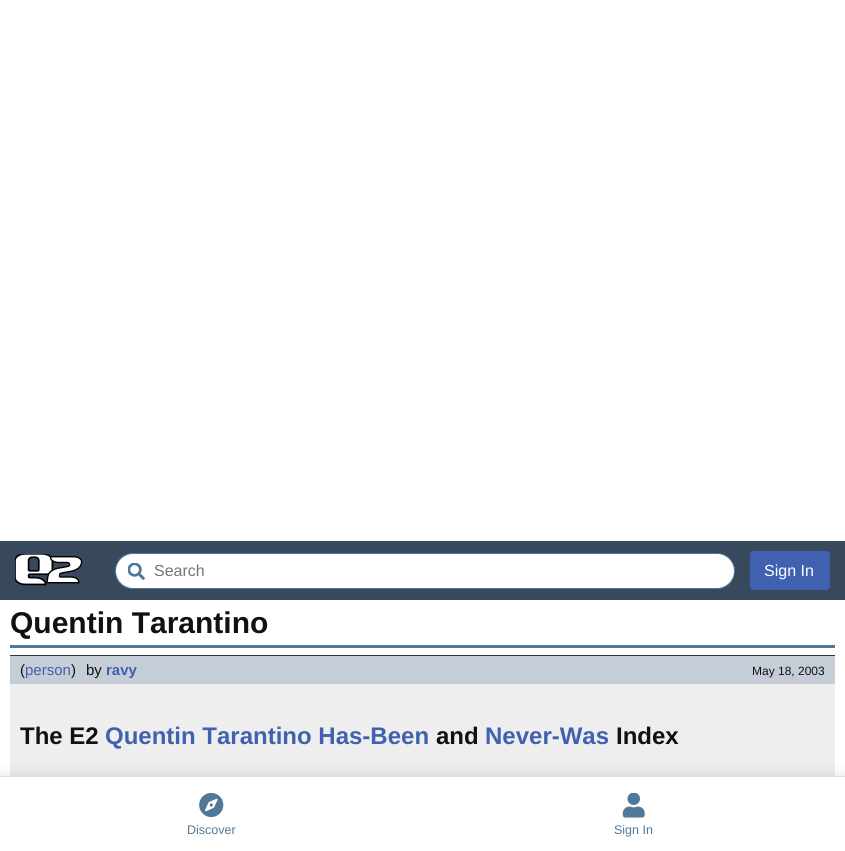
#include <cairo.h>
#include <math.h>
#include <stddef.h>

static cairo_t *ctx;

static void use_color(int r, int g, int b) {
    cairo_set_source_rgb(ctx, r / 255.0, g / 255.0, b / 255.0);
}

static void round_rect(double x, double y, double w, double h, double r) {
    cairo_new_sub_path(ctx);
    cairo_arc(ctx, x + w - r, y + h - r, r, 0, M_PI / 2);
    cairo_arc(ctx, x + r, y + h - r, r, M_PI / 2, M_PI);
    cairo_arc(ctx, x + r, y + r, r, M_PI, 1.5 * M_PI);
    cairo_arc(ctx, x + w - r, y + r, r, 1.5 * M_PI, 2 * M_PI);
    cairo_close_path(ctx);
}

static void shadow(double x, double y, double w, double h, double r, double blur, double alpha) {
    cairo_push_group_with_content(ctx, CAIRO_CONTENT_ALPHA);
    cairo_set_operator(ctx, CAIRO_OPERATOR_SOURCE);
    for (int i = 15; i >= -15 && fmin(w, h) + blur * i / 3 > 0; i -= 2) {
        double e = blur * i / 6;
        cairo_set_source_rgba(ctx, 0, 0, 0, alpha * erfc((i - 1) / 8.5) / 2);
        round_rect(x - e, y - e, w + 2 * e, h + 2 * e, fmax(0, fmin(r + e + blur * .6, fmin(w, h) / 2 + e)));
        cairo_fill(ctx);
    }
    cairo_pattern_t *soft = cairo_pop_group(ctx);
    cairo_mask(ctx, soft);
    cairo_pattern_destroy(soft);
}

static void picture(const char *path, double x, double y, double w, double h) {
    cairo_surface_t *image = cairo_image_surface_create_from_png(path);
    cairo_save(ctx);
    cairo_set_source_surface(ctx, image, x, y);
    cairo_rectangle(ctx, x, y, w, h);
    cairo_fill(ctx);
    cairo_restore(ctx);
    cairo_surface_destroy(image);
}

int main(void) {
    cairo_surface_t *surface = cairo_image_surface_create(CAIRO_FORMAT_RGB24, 845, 851);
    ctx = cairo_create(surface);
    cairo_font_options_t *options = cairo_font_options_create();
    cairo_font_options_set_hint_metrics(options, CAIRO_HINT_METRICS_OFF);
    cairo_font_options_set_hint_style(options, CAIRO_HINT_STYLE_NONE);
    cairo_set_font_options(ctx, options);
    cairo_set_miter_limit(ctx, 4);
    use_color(255, 255, 255);
    cairo_paint(ctx);
    use_color(56, 73, 94);
    cairo_rectangle(ctx, 0, 541, 845, 59);
    cairo_fill(ctx);
    picture("img1.png", 15, 554, 68, 32);
    use_color(255, 255, 255);
    round_rect(115.5, 553.5, 619, 35, 17.5);
    cairo_fill_preserve(ctx);
    use_color(80, 120, 152);
    cairo_set_line_width(ctx, 1);
    cairo_stroke(ctx);
    picture("img2.png", 128, 563, 17, 17);
    cairo_select_font_face(ctx, "Liberation Sans", CAIRO_FONT_SLANT_NORMAL, CAIRO_FONT_WEIGHT_NORMAL);
    cairo_set_font_size(ctx, 16);
    use_color(117, 117, 117);
    cairo_move_to(ctx, 154, 576);
    cairo_show_text(ctx, "Search");
    use_color(64, 96, 176);
    round_rect(750, 551, 80, 39, 4);
    cairo_fill(ctx);
    use_color(255, 255, 255);
    cairo_move_to(ctx, 764, 576);
    cairo_show_text(ctx, "Sign In");
    use_color(80, 120, 152);
    cairo_rectangle(ctx, 10, 645, 825, 3);
    cairo_fill(ctx);
    cairo_select_font_face(ctx, "Liberation Sans", CAIRO_FONT_SLANT_NORMAL, CAIRO_FONT_WEIGHT_BOLD);
    cairo_set_font_size(ctx, 30);
    use_color(17, 17, 17);
    cairo_move_to(ctx, 10, 633);
    cairo_show_text(ctx, "Quentin Tarantino");
    use_color(197, 205, 215);
    cairo_rectangle(ctx, 10, 656, 825, 28);
    cairo_fill(ctx);
    use_color(51, 51, 51);
    cairo_rectangle(ctx, 10, 655, 825, 1);
    cairo_fill(ctx);
    cairo_select_font_face(ctx, "Liberation Sans", CAIRO_FONT_SLANT_NORMAL, CAIRO_FONT_WEIGHT_NORMAL);
    cairo_set_font_size(ctx, 15);
    use_color(17, 17, 17);
    cairo_move_to(ctx, 20, 675);
    cairo_show_text(ctx, "(");
    use_color(64, 96, 176);
    cairo_move_to(ctx, 25, 675);
    cairo_show_text(ctx, "person");
    use_color(17, 17, 17);
    cairo_move_to(ctx, 71, 675);
    cairo_show_text(ctx, ")");
    cairo_move_to(ctx, 86, 675);
    cairo_show_text(ctx, "by");
    cairo_select_font_face(ctx, "Liberation Sans", CAIRO_FONT_SLANT_NORMAL, CAIRO_FONT_WEIGHT_BOLD);
    use_color(64, 96, 176);
    cairo_move_to(ctx, 106, 675);
    cairo_show_text(ctx, "ravy");
    cairo_select_font_face(ctx, "Liberation Sans", CAIRO_FONT_SLANT_NORMAL, CAIRO_FONT_WEIGHT_NORMAL);
    cairo_set_font_size(ctx, 12);
    use_color(17, 17, 17);
    cairo_move_to(ctx, 752, 675);
    cairo_show_text(ctx, "May 18, 2003");
    use_color(238, 238, 238);
    cairo_rectangle(ctx, 10, 684, 825, 92);
    cairo_fill(ctx);
    cairo_select_font_face(ctx, "Liberation Sans", CAIRO_FONT_SLANT_NORMAL, CAIRO_FONT_WEIGHT_BOLD);
    cairo_set_font_size(ctx, 24);
    use_color(17, 17, 17);
    cairo_move_to(ctx, 20, 744);
    cairo_show_text(ctx, "The E2");
    use_color(64, 96, 176);
    cairo_move_to(ctx, 105, 744);
    cairo_show_text(ctx, "Quentin Tarantino Has-Been");
    use_color(17, 17, 17);
    cairo_move_to(ctx, 436, 744);
    cairo_show_text(ctx, "and");
    use_color(64, 96, 176);
    cairo_move_to(ctx, 485, 744);
    cairo_show_text(ctx, "Never-Was");
    use_color(17, 17, 17);
    cairo_move_to(ctx, 616, 744);
    cairo_show_text(ctx, "Index");
    use_color(0, 0, 0);
    shadow(0, 774, 845, 75, 0, 6, 0.1);
    use_color(255, 255, 255);
    cairo_rectangle(ctx, 0, 777, 845, 74);
    cairo_fill(ctx);
    use_color(224, 224, 224);
    cairo_rectangle(ctx, 0, 776, 845, 1);
    cairo_fill(ctx);
    picture("img3.png", 199, 793, 25, 25);
    cairo_select_font_face(ctx, "Liberation Sans", CAIRO_FONT_SLANT_NORMAL, CAIRO_FONT_WEIGHT_NORMAL);
    cairo_set_font_size(ctx, 12.5);
    use_color(80, 120, 152);
    cairo_move_to(ctx, 187, 834);
    cairo_show_text(ctx, "Discover");
    picture("img4.png", 622, 793, 23, 25);
    cairo_move_to(ctx, 614, 834);
    cairo_show_text(ctx, "Sign In");
    cairo_surface_write_to_png(surface, "result.png");
    cairo_font_options_destroy(options);
    cairo_destroy(ctx);
    cairo_surface_destroy(surface);
    return 0;
}
